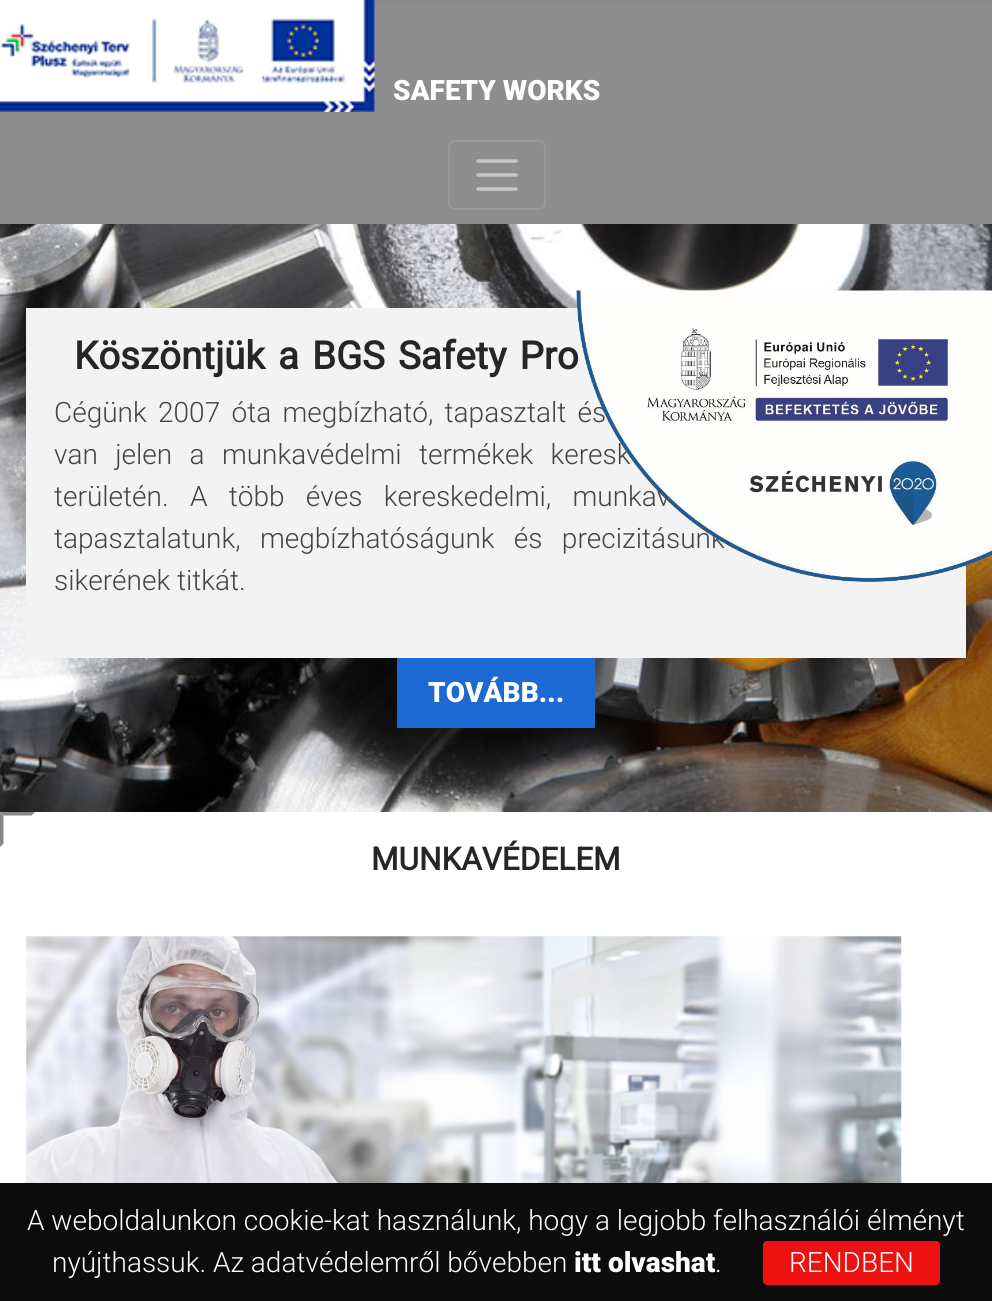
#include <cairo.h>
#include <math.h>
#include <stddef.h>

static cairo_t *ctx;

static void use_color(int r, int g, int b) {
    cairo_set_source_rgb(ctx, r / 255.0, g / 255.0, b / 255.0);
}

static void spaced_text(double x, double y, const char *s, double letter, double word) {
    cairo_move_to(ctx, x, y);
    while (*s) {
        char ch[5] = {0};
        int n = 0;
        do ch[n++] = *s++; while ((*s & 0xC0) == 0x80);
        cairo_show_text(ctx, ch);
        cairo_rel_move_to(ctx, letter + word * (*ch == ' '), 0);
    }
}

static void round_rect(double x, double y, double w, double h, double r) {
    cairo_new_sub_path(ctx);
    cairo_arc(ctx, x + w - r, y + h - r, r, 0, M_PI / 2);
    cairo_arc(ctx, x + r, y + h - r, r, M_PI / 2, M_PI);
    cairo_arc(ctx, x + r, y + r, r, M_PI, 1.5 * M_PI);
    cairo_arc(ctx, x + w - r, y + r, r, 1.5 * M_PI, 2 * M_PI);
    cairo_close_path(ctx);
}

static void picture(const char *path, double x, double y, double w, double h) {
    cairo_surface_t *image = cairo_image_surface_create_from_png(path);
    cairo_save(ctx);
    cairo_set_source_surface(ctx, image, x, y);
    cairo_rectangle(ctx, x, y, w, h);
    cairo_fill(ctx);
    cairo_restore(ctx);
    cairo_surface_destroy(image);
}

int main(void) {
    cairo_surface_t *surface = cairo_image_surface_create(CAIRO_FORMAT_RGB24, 992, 1301);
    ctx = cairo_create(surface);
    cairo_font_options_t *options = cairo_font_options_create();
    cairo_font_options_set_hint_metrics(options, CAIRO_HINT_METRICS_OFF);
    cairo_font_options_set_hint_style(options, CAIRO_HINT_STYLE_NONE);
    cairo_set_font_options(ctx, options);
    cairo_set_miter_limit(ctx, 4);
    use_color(255, 255, 255);
    cairo_paint(ctx);
    use_color(138, 138, 138);
    cairo_rectangle(ctx, 374, 0, 618, 7);
    cairo_fill(ctx);
    use_color(142, 142, 142);
    cairo_rectangle(ctx, 0, 7, 992, 217);
    cairo_fill(ctx);
    cairo_select_font_face(ctx, "Roboto Black", CAIRO_FONT_SLANT_NORMAL, CAIRO_FONT_WEIGHT_NORMAL);
    cairo_set_font_size(ctx, 28);
    use_color(255, 255, 255);
    cairo_move_to(ctx, 393, 100);
    cairo_show_text(ctx, "SAFETY WORKS");
    round_rect(449, 141, 96, 68, 6);
    use_color(153, 153, 153);
    cairo_stroke(ctx);
    cairo_new_path(ctx);
    cairo_move_to(ctx, 478, 161);
    cairo_line_to(ctx, 516, 161);
    cairo_move_to(ctx, 478, 175);
    cairo_line_to(ctx, 516, 175);
    cairo_move_to(ctx, 478, 189);
    cairo_line_to(ctx, 516, 189);
    use_color(199, 199, 199);
    cairo_set_line_width(ctx, 3.5);
    cairo_set_line_cap(ctx, CAIRO_LINE_CAP_ROUND);
    cairo_stroke(ctx);
    picture("img1.png", 0, 224, 992, 588);
    use_color(243, 243, 243);
    cairo_rectangle(ctx, 26, 308, 940, 350);
    cairo_fill(ctx);
    cairo_select_font_face(ctx, "Roboto", CAIRO_FONT_SLANT_NORMAL, CAIRO_FONT_WEIGHT_BOLD);
    cairo_set_font_size(ctx, 38.5);
    use_color(38, 38, 38);
    spaced_text(74, 369, "Köszöntjük a BGS Safety Pro", 0, 3.5);
    cairo_select_font_face(ctx, "Roboto Light", CAIRO_FONT_SLANT_NORMAL, CAIRO_FONT_WEIGHT_NORMAL);
    cairo_set_font_size(ctx, 28);
    use_color(68, 68, 68);
    spaced_text(54, 422, "Cégünk 2007 óta megbízható, tapasztalt és", 0, 4.5);
    spaced_text(54, 464, "van jelen a munkavédelmi termékek keresk", 0, 10.5);
    spaced_text(54, 506, "területén. A több éves kereskedelmi, munkav", 0, 14.5);
    spaced_text(54, 548, "tapasztalatunk, megbízhatóságunk és precizitásunk", 0, 12.5);
    cairo_move_to(ctx, 54, 590);
    cairo_show_text(ctx, "sikerének titkát.");
    use_color(28, 105, 212);
    cairo_rectangle(ctx, 397, 658, 198, 70);
    cairo_fill(ctx);
    cairo_select_font_face(ctx, "Roboto Black", CAIRO_FONT_SLANT_NORMAL, CAIRO_FONT_WEIGHT_NORMAL);
    use_color(255, 255, 255);
    cairo_move_to(ctx, 428, 702);
    cairo_show_text(ctx, "TOVÁBB...");
    picture("img2.png", 0, 0, 375, 112);
    picture("img3.png", 576, 290, 416, 292);
    use_color(136, 136, 136);
    cairo_new_path(ctx);
    cairo_move_to(ctx, 0, 812);
    cairo_line_to(ctx, 35, 812);
    cairo_line_to(ctx, 31.5, 815.5);
    cairo_line_to(ctx, 3.5, 815.5);
    cairo_close_path(ctx);
    cairo_fill(ctx);
    cairo_new_path(ctx);
    cairo_move_to(ctx, 0, 847);
    cairo_line_to(ctx, 0, 812);
    cairo_line_to(ctx, 3.5, 815.5);
    cairo_line_to(ctx, 3.5, 843.5);
    cairo_close_path(ctx);
    cairo_fill(ctx);
    cairo_select_font_face(ctx, "Roboto", CAIRO_FONT_SLANT_NORMAL, CAIRO_FONT_WEIGHT_BOLD);
    cairo_set_font_size(ctx, 31.5);
    use_color(38, 38, 38);
    cairo_move_to(ctx, 371, 870);
    cairo_show_text(ctx, "MUNKAVÉDELEM");
    picture("img4.png", 26, 936, 876, 247);
    use_color(12, 12, 12);
    cairo_rectangle(ctx, 0, 1183, 992, 118);
    cairo_fill(ctx);
    cairo_select_font_face(ctx, "Roboto Light", CAIRO_FONT_SLANT_NORMAL, CAIRO_FONT_WEIGHT_NORMAL);
    cairo_set_font_size(ctx, 28);
    use_color(255, 255, 255);
    cairo_move_to(ctx, 27, 1230);
    cairo_show_text(ctx, "A weboldalunkon cookie-kat használunk, hogy a legjobb felhasználói élményt");
    cairo_move_to(ctx, 52, 1272);
    cairo_show_text(ctx, "nyújthassuk. Az adatvédelemről bővebben");
    cairo_select_font_face(ctx, "Roboto Black", CAIRO_FONT_SLANT_NORMAL, CAIRO_FONT_WEIGHT_NORMAL);
    cairo_move_to(ctx, 574, 1272);
    cairo_show_text(ctx, "itt olvashat");
    cairo_select_font_face(ctx, "Roboto Light", CAIRO_FONT_SLANT_NORMAL, CAIRO_FONT_WEIGHT_NORMAL);
    cairo_move_to(ctx, 715, 1272);
    cairo_show_text(ctx, ".");
    use_color(238, 17, 17);
    round_rect(763, 1241, 177, 44, 4);
    cairo_fill(ctx);
    use_color(255, 255, 255);
    cairo_move_to(ctx, 789, 1272);
    cairo_show_text(ctx, "RENDBEN");
    cairo_surface_write_to_png(surface, "result.png");
    cairo_font_options_destroy(options);
    cairo_destroy(ctx);
    cairo_surface_destroy(surface);
    return 0;
}
